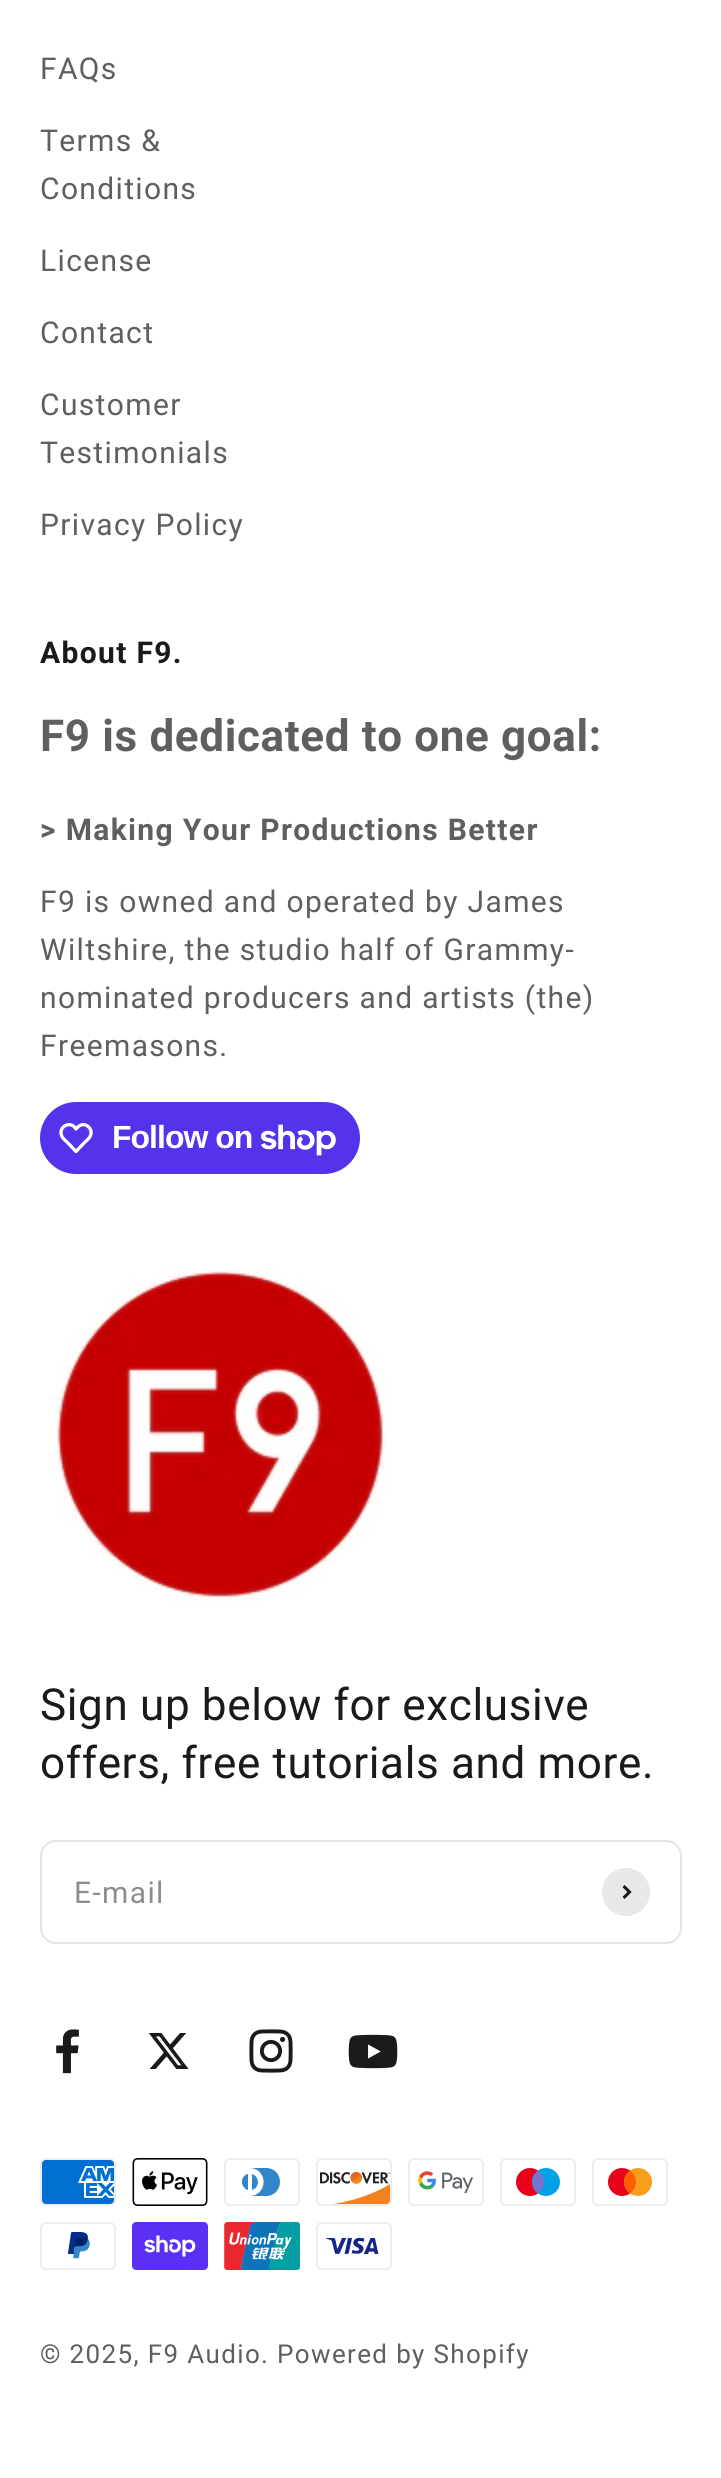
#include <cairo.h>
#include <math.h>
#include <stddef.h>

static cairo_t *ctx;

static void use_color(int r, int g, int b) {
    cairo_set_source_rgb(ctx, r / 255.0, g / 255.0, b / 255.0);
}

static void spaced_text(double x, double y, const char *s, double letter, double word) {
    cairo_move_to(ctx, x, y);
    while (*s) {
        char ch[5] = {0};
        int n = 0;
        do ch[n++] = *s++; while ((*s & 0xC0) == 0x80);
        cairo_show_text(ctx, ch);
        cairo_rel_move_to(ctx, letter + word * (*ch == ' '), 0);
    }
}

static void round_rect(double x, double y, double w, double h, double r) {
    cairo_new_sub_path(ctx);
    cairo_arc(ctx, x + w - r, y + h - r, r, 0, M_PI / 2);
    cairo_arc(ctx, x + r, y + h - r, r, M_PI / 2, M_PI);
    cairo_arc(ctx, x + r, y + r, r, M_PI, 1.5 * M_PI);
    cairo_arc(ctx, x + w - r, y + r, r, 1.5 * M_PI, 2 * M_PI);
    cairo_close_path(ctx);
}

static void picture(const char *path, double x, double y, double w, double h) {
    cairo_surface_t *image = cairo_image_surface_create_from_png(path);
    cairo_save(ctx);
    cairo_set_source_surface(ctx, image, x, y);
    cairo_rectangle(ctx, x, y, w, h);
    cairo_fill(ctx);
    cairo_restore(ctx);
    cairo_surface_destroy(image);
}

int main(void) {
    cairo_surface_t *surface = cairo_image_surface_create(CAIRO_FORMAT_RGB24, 721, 2478);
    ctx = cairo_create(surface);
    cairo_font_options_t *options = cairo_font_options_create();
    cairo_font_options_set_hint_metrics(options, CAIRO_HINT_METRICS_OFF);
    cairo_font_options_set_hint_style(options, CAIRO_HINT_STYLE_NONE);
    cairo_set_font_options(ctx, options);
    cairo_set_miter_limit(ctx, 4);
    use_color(255, 255, 255);
    cairo_paint(ctx);
    cairo_select_font_face(ctx, "Roboto", CAIRO_FONT_SLANT_NORMAL, CAIRO_FONT_WEIGHT_NORMAL);
    cairo_set_font_size(ctx, 30);
    use_color(95, 95, 95);
    spaced_text(40, 79, "FAQs", 1.35, 0);
    spaced_text(40, 151, "Terms &", 1.35, 0);
    spaced_text(40, 199, "Conditions", 1.35, 0);
    spaced_text(40, 271, "License", 1.35, 0);
    spaced_text(40, 343, "Contact", 1.35, 0);
    spaced_text(40, 415, "Customer", 1.35, 0);
    spaced_text(40, 463, "Testimonials", 1.35, 0);
    spaced_text(40, 535, "Privacy Policy", 1.35, 0);
    cairo_select_font_face(ctx, "Roboto", CAIRO_FONT_SLANT_NORMAL, CAIRO_FONT_WEIGHT_BOLD);
    use_color(26, 26, 26);
    spaced_text(40, 663, "About F9.", 1.35, 0);
    cairo_set_font_size(ctx, 44);
    use_color(95, 95, 95);
    spaced_text(40, 751, "F9 is dedicated to one goal:", 0.65, 0);
    cairo_set_font_size(ctx, 30);
    spaced_text(40, 840, "> Making Your Productions Better", 1.35, 0);
    cairo_select_font_face(ctx, "Roboto", CAIRO_FONT_SLANT_NORMAL, CAIRO_FONT_WEIGHT_NORMAL);
    spaced_text(40, 912, "F9 is owned and operated by James", 1.35, 0);
    spaced_text(40, 960, "Wiltshire, the studio half of Grammy-", 1.35, 0);
    spaced_text(40, 1008, "nominated producers and artists (the)", 1.35, 0);
    spaced_text(40, 1056, "Freemasons.", 1.35, 0);
    use_color(84, 51, 235);
    round_rect(40, 1102, 320, 72, 36);
    cairo_fill(ctx);
    cairo_new_path(ctx);
    cairo_move_to(ctx, 74.5, 1127);
    cairo_line_to(ctx, 76, 1129);
    cairo_curve_to(ctx, 77.5, 1127.5, 79, 1125.5, 81, 1125);
    cairo_curve_to(ctx, 87, 1123, 93, 1129.5, 90.5, 1135.5);
    cairo_curve_to(ctx, 89.5, 1138.5, 86.5, 1140.5, 84.5, 1142.5);
    cairo_line_to(ctx, 76, 1151.5);
    cairo_line_to(ctx, 67.5, 1142.5);
    cairo_curve_to(ctx, 65.5, 1140.5, 62.5, 1138.5, 61.5, 1135.5);
    cairo_curve_to(ctx, 58.5, 1127.5, 68.5, 1121, 74.5, 1127);
    cairo_close_path(ctx);
    use_color(255, 255, 255);
    cairo_set_line_width(ctx, 3.3);
    cairo_set_line_join(ctx, CAIRO_LINE_JOIN_ROUND);
    cairo_stroke(ctx);
    cairo_select_font_face(ctx, "Liberation Sans", CAIRO_FONT_SLANT_NORMAL, CAIRO_FONT_WEIGHT_BOLD);
    cairo_set_font_size(ctx, 32);
    spaced_text(112, 1148, "Follow on", -1, 0);
    picture("img1.png", 261, 1124, 75, 32);
    picture("img2.png", 55, 1269, 337, 337);
    cairo_select_font_face(ctx, "Roboto", CAIRO_FONT_SLANT_NORMAL, CAIRO_FONT_WEIGHT_NORMAL);
    cairo_set_font_size(ctx, 44);
    use_color(26, 26, 26);
    spaced_text(40, 1720, "Sign up below for exclusive", 0.65, 0);
    spaced_text(40, 1778, "offers, free tutorials and more.", 0.65, 0);
    round_rect(41, 1841, 640, 102, 15);
    use_color(228, 228, 228);
    cairo_set_line_width(ctx, 2);
    cairo_set_line_join(ctx, CAIRO_LINE_JOIN_MITER);
    cairo_stroke(ctx);
    cairo_set_font_size(ctx, 30);
    use_color(141, 141, 141);
    spaced_text(74, 1903, "E-mail", 1.35, 0);
    use_color(232, 232, 232);
    cairo_new_path(ctx);
    cairo_arc(ctx, 626, 1892, 24, 0, 2 * M_PI);
    cairo_fill(ctx);
    cairo_new_path(ctx);
    cairo_move_to(ctx, 623.5, 1898);
    cairo_line_to(ctx, 629.5, 1892);
    cairo_line_to(ctx, 623.5, 1886);
    use_color(26, 26, 26);
    cairo_set_line_width(ctx, 3);
    cairo_stroke(ctx);
    picture("img3.png", 56, 2029, 23, 45);
    picture("img4.png", 148, 2033, 41, 36);
    picture("img5.png", 249, 2029, 44, 44);
    picture("img6.png", 348, 2034, 50, 35);
    picture("img7.png", 40, 2158, 76, 48);
    picture("img8.png", 132, 2158, 76, 48);
    picture("img9.png", 224, 2158, 76, 48);
    picture("img10.png", 316, 2158, 76, 48);
    picture("img11.png", 408, 2158, 76, 48);
    picture("img12.png", 500, 2158, 76, 48);
    picture("img13.png", 592, 2158, 76, 48);
    picture("img14.png", 40, 2222, 76, 48);
    picture("img15.png", 132, 2222, 76, 48);
    picture("img16.png", 224, 2222, 76, 48);
    picture("img17.png", 316, 2222, 76, 48);
    cairo_set_font_size(ctx, 26);
    use_color(95, 95, 95);
    spaced_text(40, 2363, "© 2025, F9 Audio. Powered by Shopify", 1.35, 0);
    cairo_surface_write_to_png(surface, "result.png");
    cairo_font_options_destroy(options);
    cairo_destroy(ctx);
    cairo_surface_destroy(surface);
    return 0;
}
